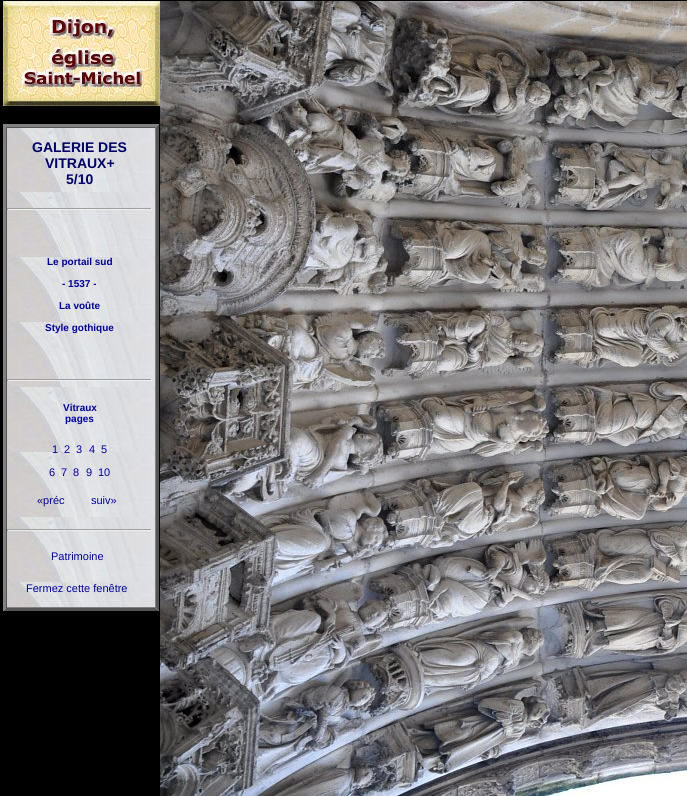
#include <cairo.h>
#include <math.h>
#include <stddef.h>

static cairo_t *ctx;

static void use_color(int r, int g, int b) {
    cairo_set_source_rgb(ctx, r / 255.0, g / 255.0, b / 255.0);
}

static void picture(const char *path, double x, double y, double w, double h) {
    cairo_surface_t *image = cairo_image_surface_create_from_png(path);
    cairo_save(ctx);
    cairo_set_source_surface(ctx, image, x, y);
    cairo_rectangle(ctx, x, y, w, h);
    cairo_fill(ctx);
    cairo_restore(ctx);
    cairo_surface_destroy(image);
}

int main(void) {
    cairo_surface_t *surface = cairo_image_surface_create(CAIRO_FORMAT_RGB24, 687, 796);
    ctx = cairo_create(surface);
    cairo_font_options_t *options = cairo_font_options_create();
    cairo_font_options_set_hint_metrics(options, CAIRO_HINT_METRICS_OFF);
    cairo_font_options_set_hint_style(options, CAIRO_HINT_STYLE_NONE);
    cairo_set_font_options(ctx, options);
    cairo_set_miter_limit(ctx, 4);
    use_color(0, 0, 0);
    cairo_paint(ctx);
    picture("img1.png", 3, 1, 157, 105);
    picture("img2.png", 160, 1, 527, 795);
    picture("img3.png", 3, 124, 156, 487);
    use_color(128, 128, 128);
    cairo_new_path(ctx);
    cairo_move_to(ctx, 3, 124);
    cairo_line_to(ctx, 159, 124);
    cairo_line_to(ctx, 156, 127);
    cairo_line_to(ctx, 6, 127);
    cairo_close_path(ctx);
    cairo_fill(ctx);
    use_color(85, 85, 85);
    cairo_new_path(ctx);
    cairo_move_to(ctx, 159, 124);
    cairo_line_to(ctx, 159, 611);
    cairo_line_to(ctx, 156, 608);
    cairo_line_to(ctx, 156, 127);
    cairo_close_path(ctx);
    cairo_fill(ctx);
    cairo_new_path(ctx);
    cairo_move_to(ctx, 159, 611);
    cairo_line_to(ctx, 3, 611);
    cairo_line_to(ctx, 6, 608);
    cairo_line_to(ctx, 156, 608);
    cairo_close_path(ctx);
    cairo_fill(ctx);
    use_color(128, 128, 128);
    cairo_new_path(ctx);
    cairo_move_to(ctx, 3, 611);
    cairo_line_to(ctx, 3, 124);
    cairo_line_to(ctx, 6, 127);
    cairo_line_to(ctx, 6, 608);
    cairo_close_path(ctx);
    cairo_fill(ctx);
    use_color(85, 85, 85);
    cairo_rectangle(ctx, 6, 127, 150, 1);
    cairo_fill(ctx);
    use_color(128, 128, 128);
    cairo_rectangle(ctx, 155, 127, 1, 481);
    cairo_fill(ctx);
    cairo_rectangle(ctx, 6, 607, 150, 1);
    cairo_fill(ctx);
    use_color(85, 85, 85);
    cairo_rectangle(ctx, 6, 127, 1, 481);
    cairo_fill(ctx);
    cairo_select_font_face(ctx, "Liberation Sans", CAIRO_FONT_SLANT_NORMAL, CAIRO_FONT_WEIGHT_BOLD);
    cairo_set_font_size(ctx, 14);
    use_color(0, 0, 102);
    cairo_move_to(ctx, 32, 152);
    cairo_show_text(ctx, "GALERIE DES");
    cairo_move_to(ctx, 45, 168);
    cairo_show_text(ctx, "VITRAUX+");
    cairo_move_to(ctx, 66, 184);
    cairo_show_text(ctx, "5/10");
    use_color(159, 159, 159);
    cairo_rectangle(ctx, 7, 208, 145, 1);
    cairo_fill(ctx);
    use_color(238, 238, 238);
    cairo_rectangle(ctx, 151, 208, 1, 2);
    cairo_fill(ctx);
    cairo_rectangle(ctx, 7, 209, 145, 1);
    cairo_fill(ctx);
    use_color(159, 159, 159);
    cairo_rectangle(ctx, 7, 208, 1, 2);
    cairo_fill(ctx);
    cairo_set_font_size(ctx, 10);
    use_color(0, 0, 153);
    cairo_move_to(ctx, 47, 265);
    cairo_show_text(ctx, "Le portail sud");
    cairo_move_to(ctx, 62, 287);
    cairo_show_text(ctx, "- 1537 -");
    cairo_move_to(ctx, 59, 309);
    cairo_show_text(ctx, "La voûte");
    cairo_move_to(ctx, 45, 331);
    cairo_show_text(ctx, "Style gothique");
    use_color(159, 159, 159);
    cairo_rectangle(ctx, 7, 379, 145, 1);
    cairo_fill(ctx);
    use_color(238, 238, 238);
    cairo_rectangle(ctx, 151, 379, 1, 2);
    cairo_fill(ctx);
    cairo_rectangle(ctx, 7, 380, 145, 1);
    cairo_fill(ctx);
    use_color(159, 159, 159);
    cairo_rectangle(ctx, 7, 379, 1, 2);
    cairo_fill(ctx);
    use_color(0, 0, 153);
    cairo_move_to(ctx, 63, 411);
    cairo_show_text(ctx, "Vitraux");
    cairo_move_to(ctx, 65, 422);
    cairo_show_text(ctx, "pages");
    cairo_select_font_face(ctx, "Liberation Sans", CAIRO_FONT_SLANT_NORMAL, CAIRO_FONT_WEIGHT_NORMAL);
    cairo_set_font_size(ctx, 11);
    cairo_move_to(ctx, 52, 453);
    cairo_show_text(ctx, "1");
    cairo_move_to(ctx, 64, 453);
    cairo_show_text(ctx, "2");
    cairo_move_to(ctx, 76, 453);
    cairo_show_text(ctx, "3");
    cairo_move_to(ctx, 89, 453);
    cairo_show_text(ctx, "4");
    cairo_move_to(ctx, 101, 453);
    cairo_show_text(ctx, "5");
    cairo_move_to(ctx, 49, 476);
    cairo_show_text(ctx, "6");
    cairo_move_to(ctx, 61, 476);
    cairo_show_text(ctx, "7");
    cairo_move_to(ctx, 73, 476);
    cairo_show_text(ctx, "8");
    cairo_move_to(ctx, 86, 476);
    cairo_show_text(ctx, "9");
    cairo_move_to(ctx, 98, 476);
    cairo_show_text(ctx, "10");
    cairo_move_to(ctx, 37, 504);
    cairo_show_text(ctx, "«préc");
    cairo_move_to(ctx, 91, 504);
    cairo_show_text(ctx, "suiv»");
    use_color(159, 159, 159);
    cairo_rectangle(ctx, 7, 529, 145, 1);
    cairo_fill(ctx);
    use_color(238, 238, 238);
    cairo_rectangle(ctx, 151, 529, 1, 2);
    cairo_fill(ctx);
    cairo_rectangle(ctx, 7, 530, 145, 1);
    cairo_fill(ctx);
    use_color(159, 159, 159);
    cairo_rectangle(ctx, 7, 529, 1, 2);
    cairo_fill(ctx);
    use_color(0, 0, 153);
    cairo_move_to(ctx, 51, 560);
    cairo_show_text(ctx, "Patrimoine");
    cairo_move_to(ctx, 26, 592);
    cairo_show_text(ctx, "Fermez cette fenêtre");
    cairo_surface_write_to_png(surface, "result.png");
    cairo_font_options_destroy(options);
    cairo_destroy(ctx);
    cairo_surface_destroy(surface);
    return 0;
}
